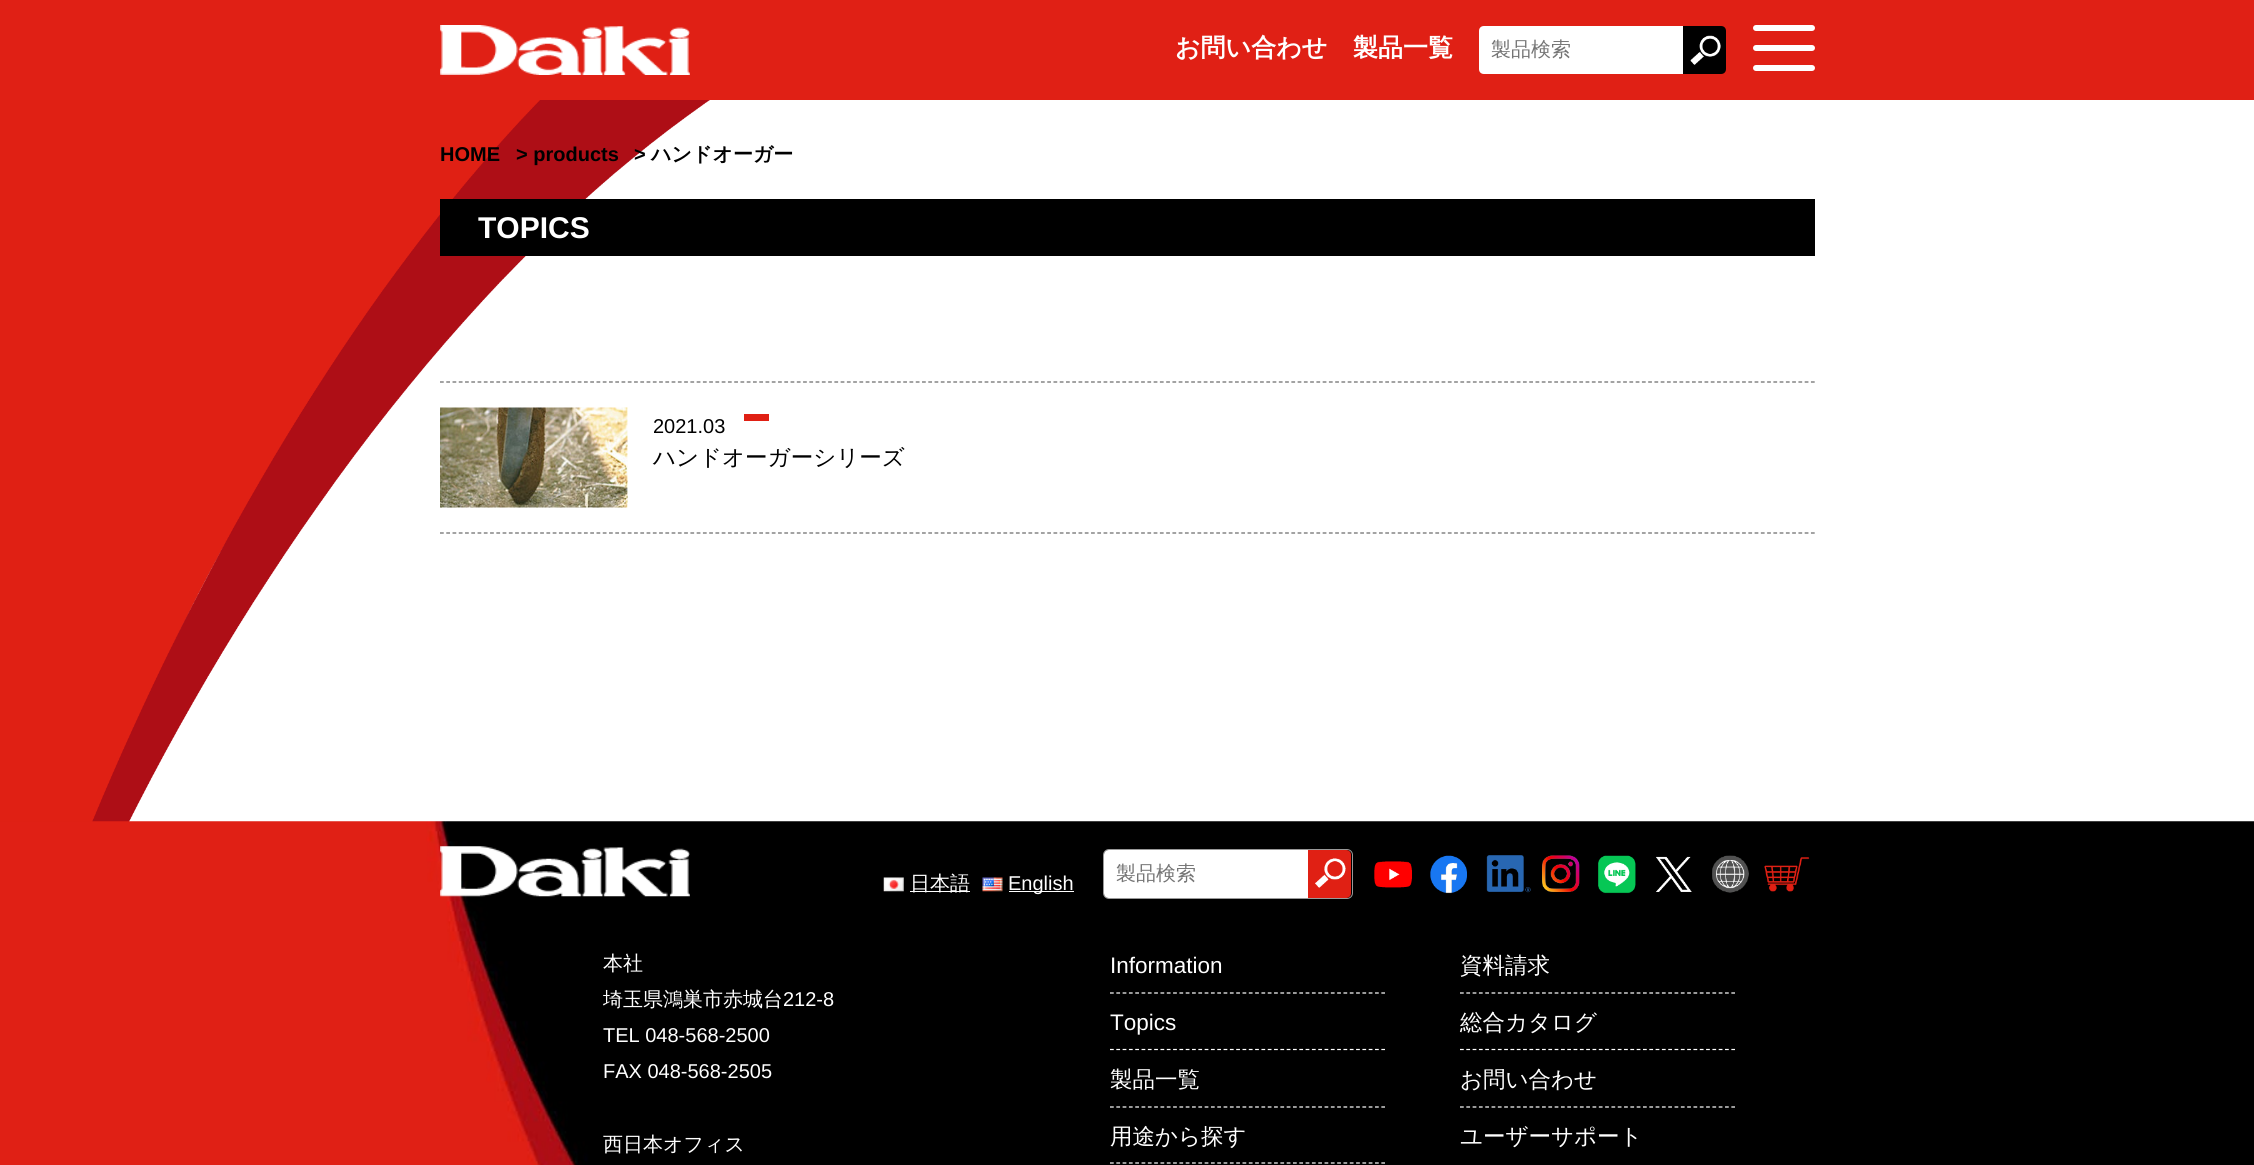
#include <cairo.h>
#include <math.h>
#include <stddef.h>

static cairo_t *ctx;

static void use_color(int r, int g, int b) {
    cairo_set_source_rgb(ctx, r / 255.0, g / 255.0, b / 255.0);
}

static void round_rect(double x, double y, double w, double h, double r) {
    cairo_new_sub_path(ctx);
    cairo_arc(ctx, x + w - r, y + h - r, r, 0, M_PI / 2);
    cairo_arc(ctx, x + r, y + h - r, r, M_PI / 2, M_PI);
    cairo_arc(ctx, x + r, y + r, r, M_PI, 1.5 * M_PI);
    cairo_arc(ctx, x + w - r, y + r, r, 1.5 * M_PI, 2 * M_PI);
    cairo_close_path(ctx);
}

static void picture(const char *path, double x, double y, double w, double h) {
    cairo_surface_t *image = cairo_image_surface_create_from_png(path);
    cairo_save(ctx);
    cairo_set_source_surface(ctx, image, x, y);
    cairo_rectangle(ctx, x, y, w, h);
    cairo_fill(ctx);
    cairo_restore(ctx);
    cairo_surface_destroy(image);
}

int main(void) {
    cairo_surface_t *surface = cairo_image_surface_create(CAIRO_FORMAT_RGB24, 2254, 1165);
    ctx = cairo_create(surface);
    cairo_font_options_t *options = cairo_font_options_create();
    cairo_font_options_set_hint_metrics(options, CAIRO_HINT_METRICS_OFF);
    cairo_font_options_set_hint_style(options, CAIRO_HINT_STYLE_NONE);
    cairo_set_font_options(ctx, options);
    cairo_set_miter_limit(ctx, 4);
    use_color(255, 255, 255);
    cairo_paint(ctx);
    use_color(224, 32, 21);
    cairo_rectangle(ctx, 0, 0, 2254, 100);
    cairo_fill(ctx);
    picture("img1.png", 440, 25, 250, 50);
    cairo_select_font_face(ctx, "WenQuanYi Zen Hei", CAIRO_FONT_SLANT_NORMAL, CAIRO_FONT_WEIGHT_BOLD);
    cairo_set_font_size(ctx, 25);
    use_color(255, 255, 255);
    cairo_move_to(ctx, 1175, 56);
    cairo_show_text(ctx, "お問い合わせ");
    cairo_move_to(ctx, 1353, 56);
    cairo_show_text(ctx, "製品一覧");
    cairo_new_path(ctx);
    cairo_move_to(ctx, 1484, 26);
    cairo_line_to(ctx, 1685, 26);
    cairo_line_to(ctx, 1685, 74);
    cairo_line_to(ctx, 1484, 74);
    cairo_curve_to(ctx, 1481, 74, 1479, 72, 1479, 69);
    cairo_line_to(ctx, 1479, 31);
    cairo_curve_to(ctx, 1479, 28, 1481, 26, 1484, 26);
    cairo_close_path(ctx);
    cairo_fill(ctx);
    cairo_select_font_face(ctx, "WenQuanYi Zen Hei Medium", CAIRO_FONT_SLANT_NORMAL, CAIRO_FONT_WEIGHT_NORMAL);
    cairo_set_font_size(ctx, 20);
    use_color(117, 117, 117);
    cairo_move_to(ctx, 1491, 56);
    cairo_show_text(ctx, "製品検索");
    use_color(0, 0, 0);
    cairo_new_path(ctx);
    cairo_move_to(ctx, 1683, 26);
    cairo_line_to(ctx, 1721, 26);
    cairo_curve_to(ctx, 1724, 26, 1726, 28, 1726, 31);
    cairo_line_to(ctx, 1726, 69);
    cairo_curve_to(ctx, 1726, 72, 1724, 74, 1721, 74);
    cairo_line_to(ctx, 1683, 74);
    cairo_close_path(ctx);
    cairo_fill(ctx);
    picture("img2.png", 1690, 35, 31, 30);
    use_color(255, 255, 255);
    round_rect(1753, 25, 62, 6, 3);
    cairo_fill(ctx);
    round_rect(1753, 45, 62, 6, 3);
    cairo_fill(ctx);
    round_rect(1753, 65, 62, 6, 3);
    cairo_fill(ctx);
    picture("img3.png", 0, 100, 710, 722);
    cairo_select_font_face(ctx, "Liberation Sans", CAIRO_FONT_SLANT_NORMAL, CAIRO_FONT_WEIGHT_BOLD);
    use_color(0, 0, 0);
    cairo_move_to(ctx, 440, 161);
    cairo_show_text(ctx, "HOME");
    cairo_move_to(ctx, 516, 161);
    cairo_show_text(ctx, "> products");
    cairo_move_to(ctx, 634, 161);
    cairo_show_text(ctx, ">");
    cairo_select_font_face(ctx, "WenQuanYi Zen Hei", CAIRO_FONT_SLANT_NORMAL, CAIRO_FONT_WEIGHT_BOLD);
    cairo_move_to(ctx, 651, 161);
    cairo_show_text(ctx, "ハンドオーガー");
    cairo_rectangle(ctx, 440, 199, 1375, 57);
    cairo_fill(ctx);
    cairo_select_font_face(ctx, "Liberation Sans", CAIRO_FONT_SLANT_NORMAL, CAIRO_FONT_WEIGHT_BOLD);
    cairo_set_font_size(ctx, 30);
    use_color(255, 255, 255);
    cairo_move_to(ctx, 478, 238);
    cairo_show_text(ctx, "TOPICS");
    cairo_new_path(ctx);
    cairo_move_to(ctx, 440, 382);
    cairo_line_to(ctx, 1815, 382);
    use_color(102, 102, 102);
    cairo_set_line_width(ctx, 1.2);
    cairo_set_dash(ctx, (double[]){3.75, 2.51}, 2, 0);
    cairo_stroke(ctx);
    cairo_new_path(ctx);
    cairo_move_to(ctx, 440, 533);
    cairo_line_to(ctx, 1815, 533);
    cairo_stroke(ctx);
    picture("img4.png", 440, 407, 188, 101);
    use_color(224, 32, 20);
    cairo_rectangle(ctx, 744, 414, 25, 7);
    cairo_fill(ctx);
    cairo_select_font_face(ctx, "Liberation Sans", CAIRO_FONT_SLANT_NORMAL, CAIRO_FONT_WEIGHT_NORMAL);
    cairo_set_font_size(ctx, 20);
    use_color(0, 0, 0);
    cairo_move_to(ctx, 653, 433);
    cairo_show_text(ctx, "2021.03");
    cairo_select_font_face(ctx, "WenQuanYi Zen Hei Medium", CAIRO_FONT_SLANT_NORMAL, CAIRO_FONT_WEIGHT_NORMAL);
    cairo_set_font_size(ctx, 22.5);
    cairo_move_to(ctx, 653, 465);
    cairo_show_text(ctx, "ハンドオーガーシリーズ");
    picture("img5.png", 0, 821, 2254, 344);
    picture("img6.png", 440, 846, 250, 51);
    picture("img7.png", 883, 877, 21, 15);
    use_color(255, 255, 255);
    cairo_rectangle(ctx, 910, 891, 60, 1);
    cairo_fill(ctx);
    cairo_set_font_size(ctx, 20);
    cairo_move_to(ctx, 910, 890);
    cairo_show_text(ctx, "日本語");
    picture("img8.png", 982, 877, 21, 15);
    cairo_rectangle(ctx, 1009, 891, 65, 1);
    cairo_fill(ctx);
    cairo_select_font_face(ctx, "Liberation Sans", CAIRO_FONT_SLANT_NORMAL, CAIRO_FONT_WEIGHT_NORMAL);
    cairo_move_to(ctx, 1008, 890);
    cairo_show_text(ctx, "English");
    picture("img9.png", 1374, 861, 38, 27);
    picture("img10.png", 1430, 855, 37, 39);
    picture("img11.png", 1486, 855, 45, 38);
    picture("img12.png", 1542, 855, 38, 37);
    picture("img13.png", 1598, 855, 38, 39);
    picture("img14.png", 1656, 856, 36, 36);
    picture("img15.png", 1712, 855, 37, 38);
    picture("img16.png", 1764, 857, 46, 35);
    round_rect(1103.5, 849.5, 249, 49, 5.5);
    use_color(153, 153, 153);
    cairo_set_line_width(ctx, 1);
    cairo_set_dash(ctx, NULL, 0, 0);
    cairo_stroke(ctx);
    use_color(255, 255, 255);
    cairo_new_path(ctx);
    cairo_move_to(ctx, 1109, 850);
    cairo_line_to(ctx, 1310, 850);
    cairo_line_to(ctx, 1310, 898);
    cairo_line_to(ctx, 1109, 898);
    cairo_curve_to(ctx, 1106, 898, 1104, 896, 1104, 893);
    cairo_line_to(ctx, 1104, 855);
    cairo_curve_to(ctx, 1104, 852, 1106, 850, 1109, 850);
    cairo_close_path(ctx);
    cairo_fill(ctx);
    cairo_select_font_face(ctx, "WenQuanYi Zen Hei Medium", CAIRO_FONT_SLANT_NORMAL, CAIRO_FONT_WEIGHT_NORMAL);
    use_color(117, 117, 117);
    cairo_move_to(ctx, 1116, 880);
    cairo_show_text(ctx, "製品検索");
    use_color(224, 32, 20);
    cairo_new_path(ctx);
    cairo_move_to(ctx, 1308, 850);
    cairo_line_to(ctx, 1346, 850);
    cairo_curve_to(ctx, 1349, 850, 1351, 852, 1351, 855);
    cairo_line_to(ctx, 1351, 893);
    cairo_curve_to(ctx, 1351, 896, 1349, 898, 1346, 898);
    cairo_line_to(ctx, 1308, 898);
    cairo_close_path(ctx);
    cairo_fill(ctx);
    picture("img17.png", 1315, 858, 31, 30);
    use_color(255, 255, 255);
    cairo_move_to(ctx, 603, 970);
    cairo_show_text(ctx, "本社");
    cairo_move_to(ctx, 603, 1006);
    cairo_show_text(ctx, "埼玉県鴻巣市赤城台");
    cairo_select_font_face(ctx, "Liberation Sans", CAIRO_FONT_SLANT_NORMAL, CAIRO_FONT_WEIGHT_NORMAL);
    cairo_move_to(ctx, 783, 1006);
    cairo_show_text(ctx, "212-8");
    cairo_move_to(ctx, 603, 1042);
    cairo_show_text(ctx, "TEL 048-568-2500");
    cairo_move_to(ctx, 603, 1078);
    cairo_show_text(ctx, "FAX 048-568-2505");
    cairo_select_font_face(ctx, "WenQuanYi Zen Hei Medium", CAIRO_FONT_SLANT_NORMAL, CAIRO_FONT_WEIGHT_NORMAL);
    cairo_move_to(ctx, 603, 1151);
    cairo_show_text(ctx, "西日本オフィス");
    cairo_new_path(ctx);
    cairo_move_to(ctx, 1110, 993);
    cairo_line_to(ctx, 1385, 993);
    cairo_set_line_width(ctx, 1.2);
    cairo_set_dash(ctx, (double[]){3.75, 2.56}, 2, 0);
    cairo_stroke(ctx);
    cairo_select_font_face(ctx, "Liberation Sans", CAIRO_FONT_SLANT_NORMAL, CAIRO_FONT_WEIGHT_NORMAL);
    cairo_set_font_size(ctx, 22.5);
    cairo_move_to(ctx, 1110, 973);
    cairo_show_text(ctx, "Information");
    cairo_new_path(ctx);
    cairo_move_to(ctx, 1110, 1049.5);
    cairo_line_to(ctx, 1385, 1049.5);
    cairo_stroke(ctx);
    cairo_move_to(ctx, 1110, 1030);
    cairo_show_text(ctx, "Topics");
    cairo_new_path(ctx);
    cairo_move_to(ctx, 1110, 1107);
    cairo_line_to(ctx, 1385, 1107);
    cairo_stroke(ctx);
    cairo_select_font_face(ctx, "WenQuanYi Zen Hei Medium", CAIRO_FONT_SLANT_NORMAL, CAIRO_FONT_WEIGHT_NORMAL);
    cairo_move_to(ctx, 1110, 1087);
    cairo_show_text(ctx, "製品一覧");
    cairo_new_path(ctx);
    cairo_move_to(ctx, 1110, 1163);
    cairo_line_to(ctx, 1385, 1163);
    cairo_stroke(ctx);
    cairo_move_to(ctx, 1110, 1144);
    cairo_show_text(ctx, "用途から探す");
    cairo_new_path(ctx);
    cairo_move_to(ctx, 1460, 993);
    cairo_line_to(ctx, 1735, 993);
    cairo_stroke(ctx);
    cairo_move_to(ctx, 1460, 973);
    cairo_show_text(ctx, "資料請求");
    cairo_new_path(ctx);
    cairo_move_to(ctx, 1460, 1049.5);
    cairo_line_to(ctx, 1735, 1049.5);
    cairo_stroke(ctx);
    cairo_move_to(ctx, 1460, 1030);
    cairo_show_text(ctx, "総合カタログ");
    cairo_new_path(ctx);
    cairo_move_to(ctx, 1460, 1107);
    cairo_line_to(ctx, 1735, 1107);
    cairo_stroke(ctx);
    cairo_move_to(ctx, 1460, 1087);
    cairo_show_text(ctx, "お問い合わせ");
    cairo_move_to(ctx, 1460, 1144);
    cairo_show_text(ctx, "ユーザーサポート");
    cairo_surface_write_to_png(surface, "result.png");
    cairo_font_options_destroy(options);
    cairo_destroy(ctx);
    cairo_surface_destroy(surface);
    return 0;
}
